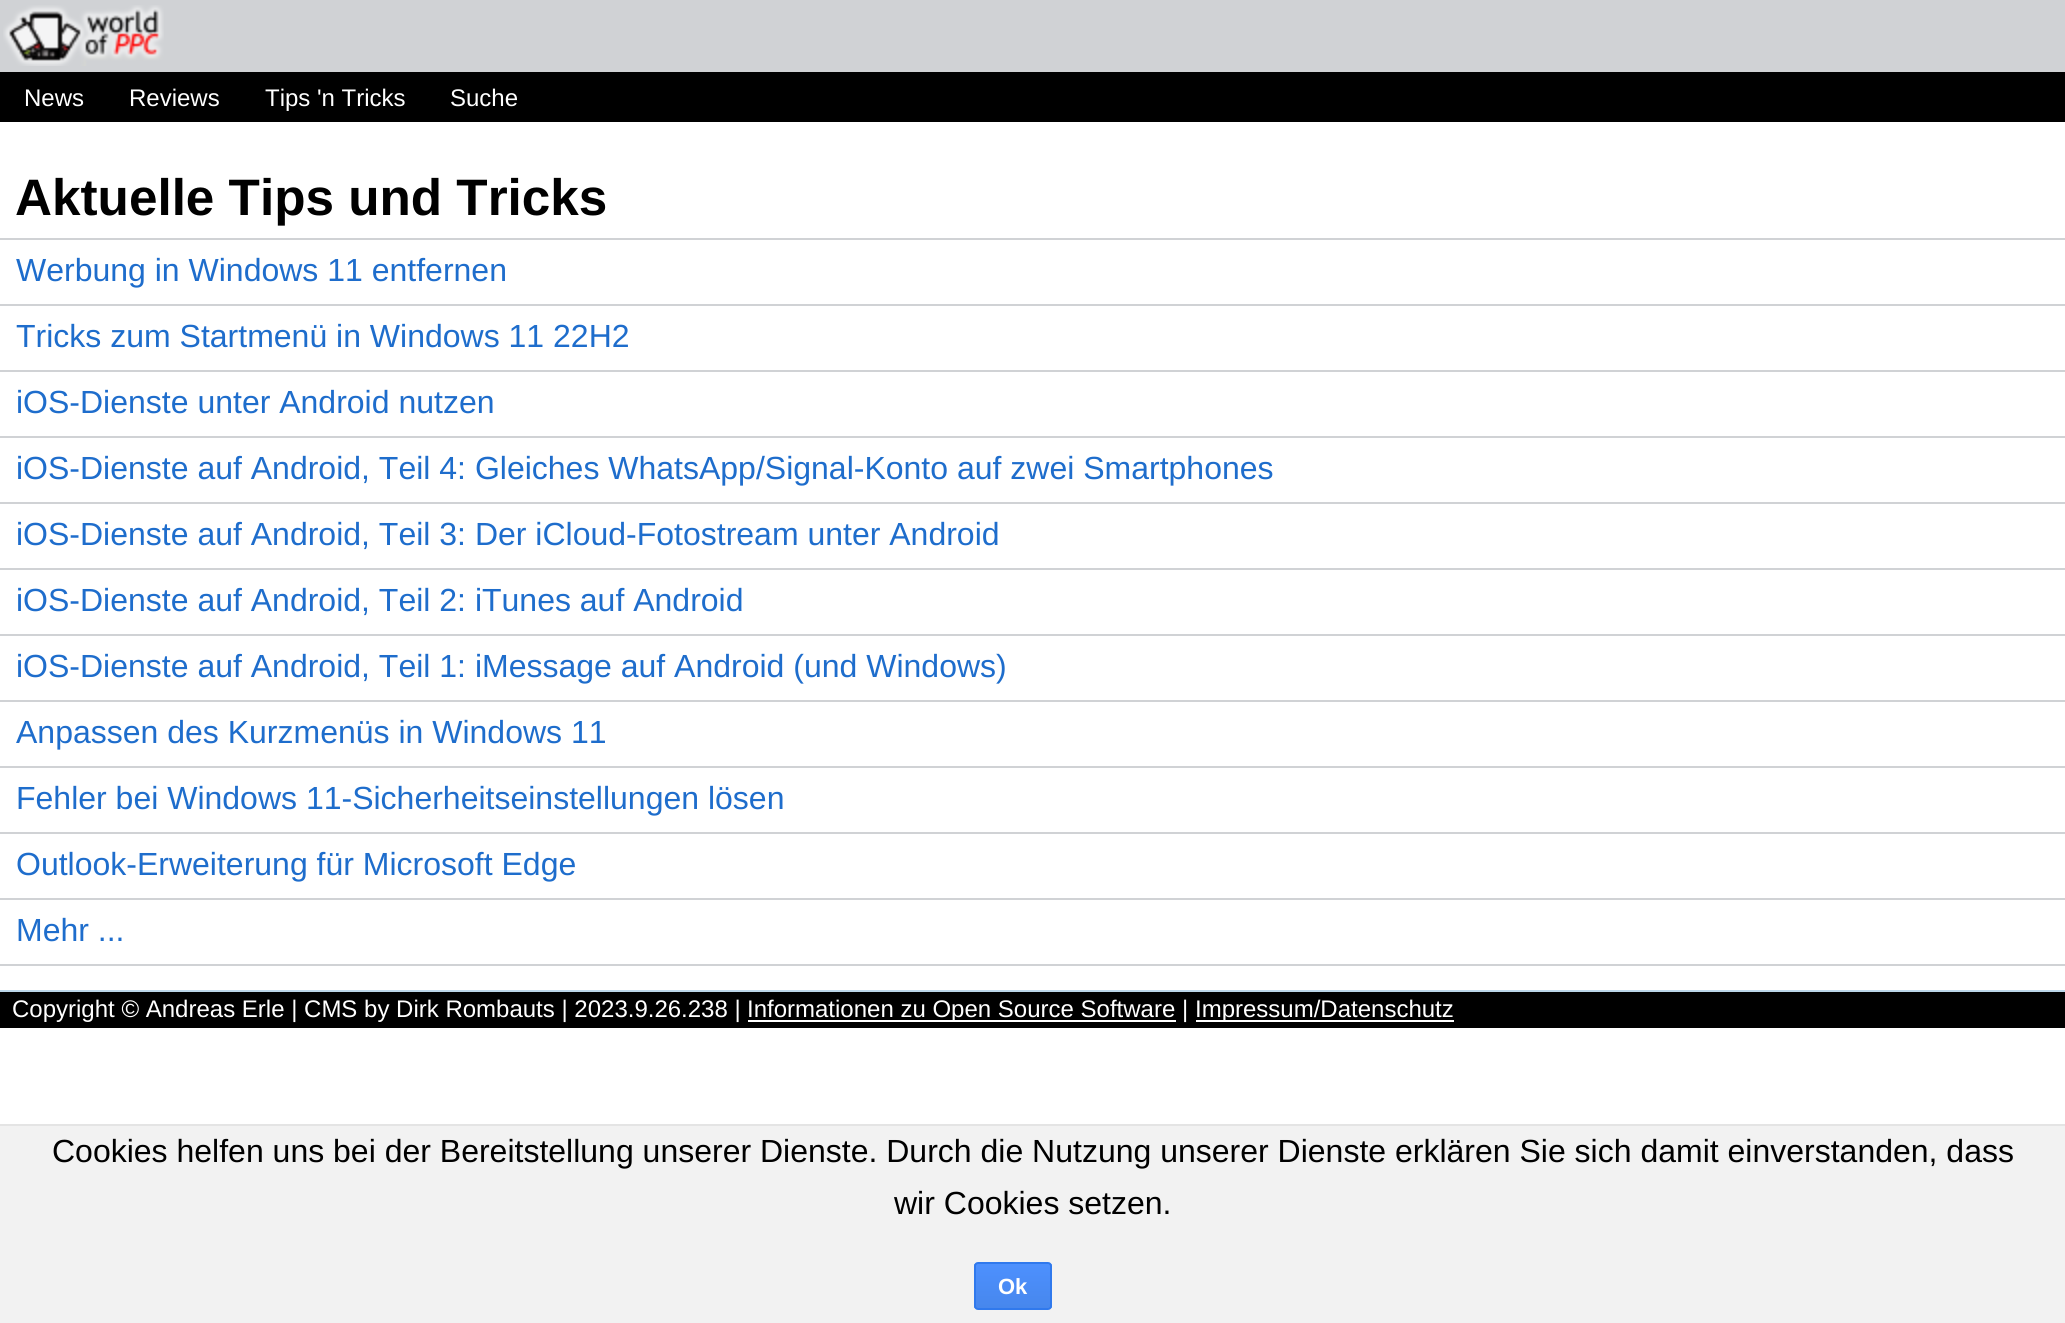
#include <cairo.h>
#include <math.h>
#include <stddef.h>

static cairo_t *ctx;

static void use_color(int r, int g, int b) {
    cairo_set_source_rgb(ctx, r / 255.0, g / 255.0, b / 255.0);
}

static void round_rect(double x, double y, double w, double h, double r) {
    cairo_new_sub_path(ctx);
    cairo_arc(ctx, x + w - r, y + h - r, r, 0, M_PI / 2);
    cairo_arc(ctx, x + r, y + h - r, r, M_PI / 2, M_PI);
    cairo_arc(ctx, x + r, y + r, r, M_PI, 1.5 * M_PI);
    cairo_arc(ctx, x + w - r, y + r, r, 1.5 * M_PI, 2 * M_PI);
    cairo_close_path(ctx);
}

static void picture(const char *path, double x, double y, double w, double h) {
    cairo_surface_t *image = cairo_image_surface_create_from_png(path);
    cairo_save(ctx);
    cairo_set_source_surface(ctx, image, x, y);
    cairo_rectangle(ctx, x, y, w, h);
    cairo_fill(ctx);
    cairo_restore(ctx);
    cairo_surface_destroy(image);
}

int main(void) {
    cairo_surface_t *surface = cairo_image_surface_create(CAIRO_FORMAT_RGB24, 2065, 1323);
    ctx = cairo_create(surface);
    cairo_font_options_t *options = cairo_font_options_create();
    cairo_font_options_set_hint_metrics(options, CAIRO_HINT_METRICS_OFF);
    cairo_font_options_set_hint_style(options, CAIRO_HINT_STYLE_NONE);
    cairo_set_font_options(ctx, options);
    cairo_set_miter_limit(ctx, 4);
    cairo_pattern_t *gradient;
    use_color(255, 255, 255);
    cairo_paint(ctx);
    use_color(208, 210, 213);
    cairo_rectangle(ctx, 0, 0, 2065, 72);
    cairo_fill(ctx);
    picture("img1.png", 3, 5, 161, 61);
    use_color(0, 0, 0);
    cairo_rectangle(ctx, 0, 72, 2065, 50);
    cairo_fill(ctx);
    cairo_select_font_face(ctx, "Liberation Sans", CAIRO_FONT_SLANT_NORMAL, CAIRO_FONT_WEIGHT_NORMAL);
    cairo_set_font_size(ctx, 24);
    use_color(255, 255, 255);
    cairo_move_to(ctx, 24, 106);
    cairo_show_text(ctx, "News");
    cairo_move_to(ctx, 129, 106);
    cairo_show_text(ctx, "Reviews");
    cairo_move_to(ctx, 265, 106);
    cairo_show_text(ctx, "Tips 'n Tricks");
    cairo_move_to(ctx, 450, 106);
    cairo_show_text(ctx, "Suche");
    cairo_select_font_face(ctx, "Liberation Sans", CAIRO_FONT_SLANT_NORMAL, CAIRO_FONT_WEIGHT_BOLD);
    cairo_set_font_size(ctx, 51.25);
    use_color(0, 0, 0);
    cairo_move_to(ctx, 15, 215);
    cairo_show_text(ctx, "Aktuelle Tips und Tricks");
    use_color(208, 210, 213);
    cairo_rectangle(ctx, 0, 238, 2065, 2);
    cairo_fill(ctx);
    cairo_select_font_face(ctx, "Liberation Sans", CAIRO_FONT_SLANT_NORMAL, CAIRO_FONT_WEIGHT_NORMAL);
    cairo_set_font_size(ctx, 32);
    use_color(30, 109, 204);
    cairo_move_to(ctx, 16, 281);
    cairo_show_text(ctx, "Werbung in Windows 11 entfernen");
    use_color(208, 210, 213);
    cairo_rectangle(ctx, 0, 304, 2065, 2);
    cairo_fill(ctx);
    use_color(30, 109, 204);
    cairo_move_to(ctx, 16, 347);
    cairo_show_text(ctx, "Tricks zum Startmenü in Windows 11 22H2");
    use_color(208, 210, 213);
    cairo_rectangle(ctx, 0, 370, 2065, 2);
    cairo_fill(ctx);
    use_color(30, 109, 204);
    cairo_move_to(ctx, 16, 413);
    cairo_show_text(ctx, "iOS-Dienste unter Android nutzen");
    use_color(208, 210, 213);
    cairo_rectangle(ctx, 0, 436, 2065, 2);
    cairo_fill(ctx);
    use_color(30, 109, 204);
    cairo_move_to(ctx, 16, 479);
    cairo_show_text(ctx, "iOS-Dienste auf Android, Teil 4: Gleiches WhatsApp/Signal-Konto auf zwei Smartphones");
    use_color(208, 210, 213);
    cairo_rectangle(ctx, 0, 502, 2065, 2);
    cairo_fill(ctx);
    use_color(30, 109, 204);
    cairo_move_to(ctx, 16, 545);
    cairo_show_text(ctx, "iOS-Dienste auf Android, Teil 3: Der iCloud-Fotostream unter Android");
    use_color(208, 210, 213);
    cairo_rectangle(ctx, 0, 568, 2065, 2);
    cairo_fill(ctx);
    use_color(30, 109, 204);
    cairo_move_to(ctx, 16, 611);
    cairo_show_text(ctx, "iOS-Dienste auf Android, Teil 2: iTunes auf Android");
    use_color(208, 210, 213);
    cairo_rectangle(ctx, 0, 634, 2065, 2);
    cairo_fill(ctx);
    use_color(30, 109, 204);
    cairo_move_to(ctx, 16, 677);
    cairo_show_text(ctx, "iOS-Dienste auf Android, Teil 1: iMessage auf Android (und Windows)");
    use_color(208, 210, 213);
    cairo_rectangle(ctx, 0, 700, 2065, 2);
    cairo_fill(ctx);
    use_color(30, 109, 204);
    cairo_move_to(ctx, 16, 743);
    cairo_show_text(ctx, "Anpassen des Kurzmenüs in Windows 11");
    use_color(208, 210, 213);
    cairo_rectangle(ctx, 0, 766, 2065, 2);
    cairo_fill(ctx);
    use_color(30, 109, 204);
    cairo_move_to(ctx, 16, 809);
    cairo_show_text(ctx, "Fehler bei Windows 11-Sicherheitseinstellungen lösen");
    use_color(208, 210, 213);
    cairo_rectangle(ctx, 0, 832, 2065, 2);
    cairo_fill(ctx);
    use_color(30, 109, 204);
    cairo_move_to(ctx, 16, 875);
    cairo_show_text(ctx, "Outlook-Erweiterung für Microsoft Edge");
    use_color(208, 210, 213);
    cairo_rectangle(ctx, 0, 898, 2065, 2);
    cairo_fill(ctx);
    cairo_rectangle(ctx, 0, 964, 2065, 2);
    cairo_fill(ctx);
    use_color(30, 109, 204);
    cairo_move_to(ctx, 16, 941);
    cairo_show_text(ctx, "Mehr ...");
    use_color(0, 0, 0);
    cairo_rectangle(ctx, 0, 992, 2065, 36);
    cairo_fill(ctx);
    use_color(187, 214, 233);
    cairo_rectangle(ctx, 0, 990, 2065, 2);
    cairo_fill(ctx);
    cairo_set_font_size(ctx, 24);
    use_color(255, 255, 255);
    cairo_move_to(ctx, 12, 1017);
    cairo_show_text(ctx, "Copyright © Andreas Erle | CMS by Dirk Rombauts | 2023.9.26.238 |");
    cairo_rectangle(ctx, 748, 1020, 428, 2);
    cairo_fill(ctx);
    cairo_move_to(ctx, 747, 1017);
    cairo_show_text(ctx, "Informationen zu Open Source Software |");
    cairo_rectangle(ctx, 1196, 1020, 258, 2);
    cairo_fill(ctx);
    cairo_move_to(ctx, 1195, 1017);
    cairo_show_text(ctx, "Impressum/Datenschutz");
    use_color(242, 242, 242);
    cairo_rectangle(ctx, 0, 1126, 2065, 197);
    cairo_fill(ctx);
    use_color(228, 228, 228);
    cairo_rectangle(ctx, 0, 1124, 2065, 2);
    cairo_fill(ctx);
    cairo_set_font_size(ctx, 32);
    use_color(0, 0, 0);
    cairo_move_to(ctx, 52, 1162);
    cairo_show_text(ctx, "Cookies helfen uns bei der Bereitstellung unserer Dienste. Durch die Nutzung unserer Dienste erklären Sie sich damit einverstanden, dass");
    cairo_move_to(ctx, 894, 1214);
    cairo_show_text(ctx, "wir Cookies setzen.");
    cairo_save(ctx);
    round_rect(974, 1262, 78, 48, 4);
    cairo_clip(ctx);
    gradient = cairo_pattern_create_linear(1013, 1264, 1013, 1308);
    cairo_pattern_add_color_stop_rgba(gradient, 0, 0.302, 0.565, 0.996, 1);
    cairo_pattern_add_color_stop_rgba(gradient, 1, 0.278, 0.529, 0.929, 1);
    cairo_set_source(ctx, gradient);
    cairo_pattern_destroy(gradient);
    cairo_rectangle(ctx, 974, 1264, 78, 44);
    cairo_fill(ctx);
    cairo_restore(ctx);
    round_rect(975, 1263, 76, 46, 3);
    use_color(48, 121, 237);
    cairo_stroke(ctx);
    cairo_select_font_face(ctx, "Liberation Sans", CAIRO_FONT_SLANT_NORMAL, CAIRO_FONT_WEIGHT_BOLD);
    cairo_set_font_size(ctx, 22);
    use_color(255, 255, 255);
    cairo_move_to(ctx, 998, 1294);
    cairo_show_text(ctx, "Ok");
    cairo_surface_write_to_png(surface, "result.png");
    cairo_font_options_destroy(options);
    cairo_destroy(ctx);
    cairo_surface_destroy(surface);
    return 0;
}
